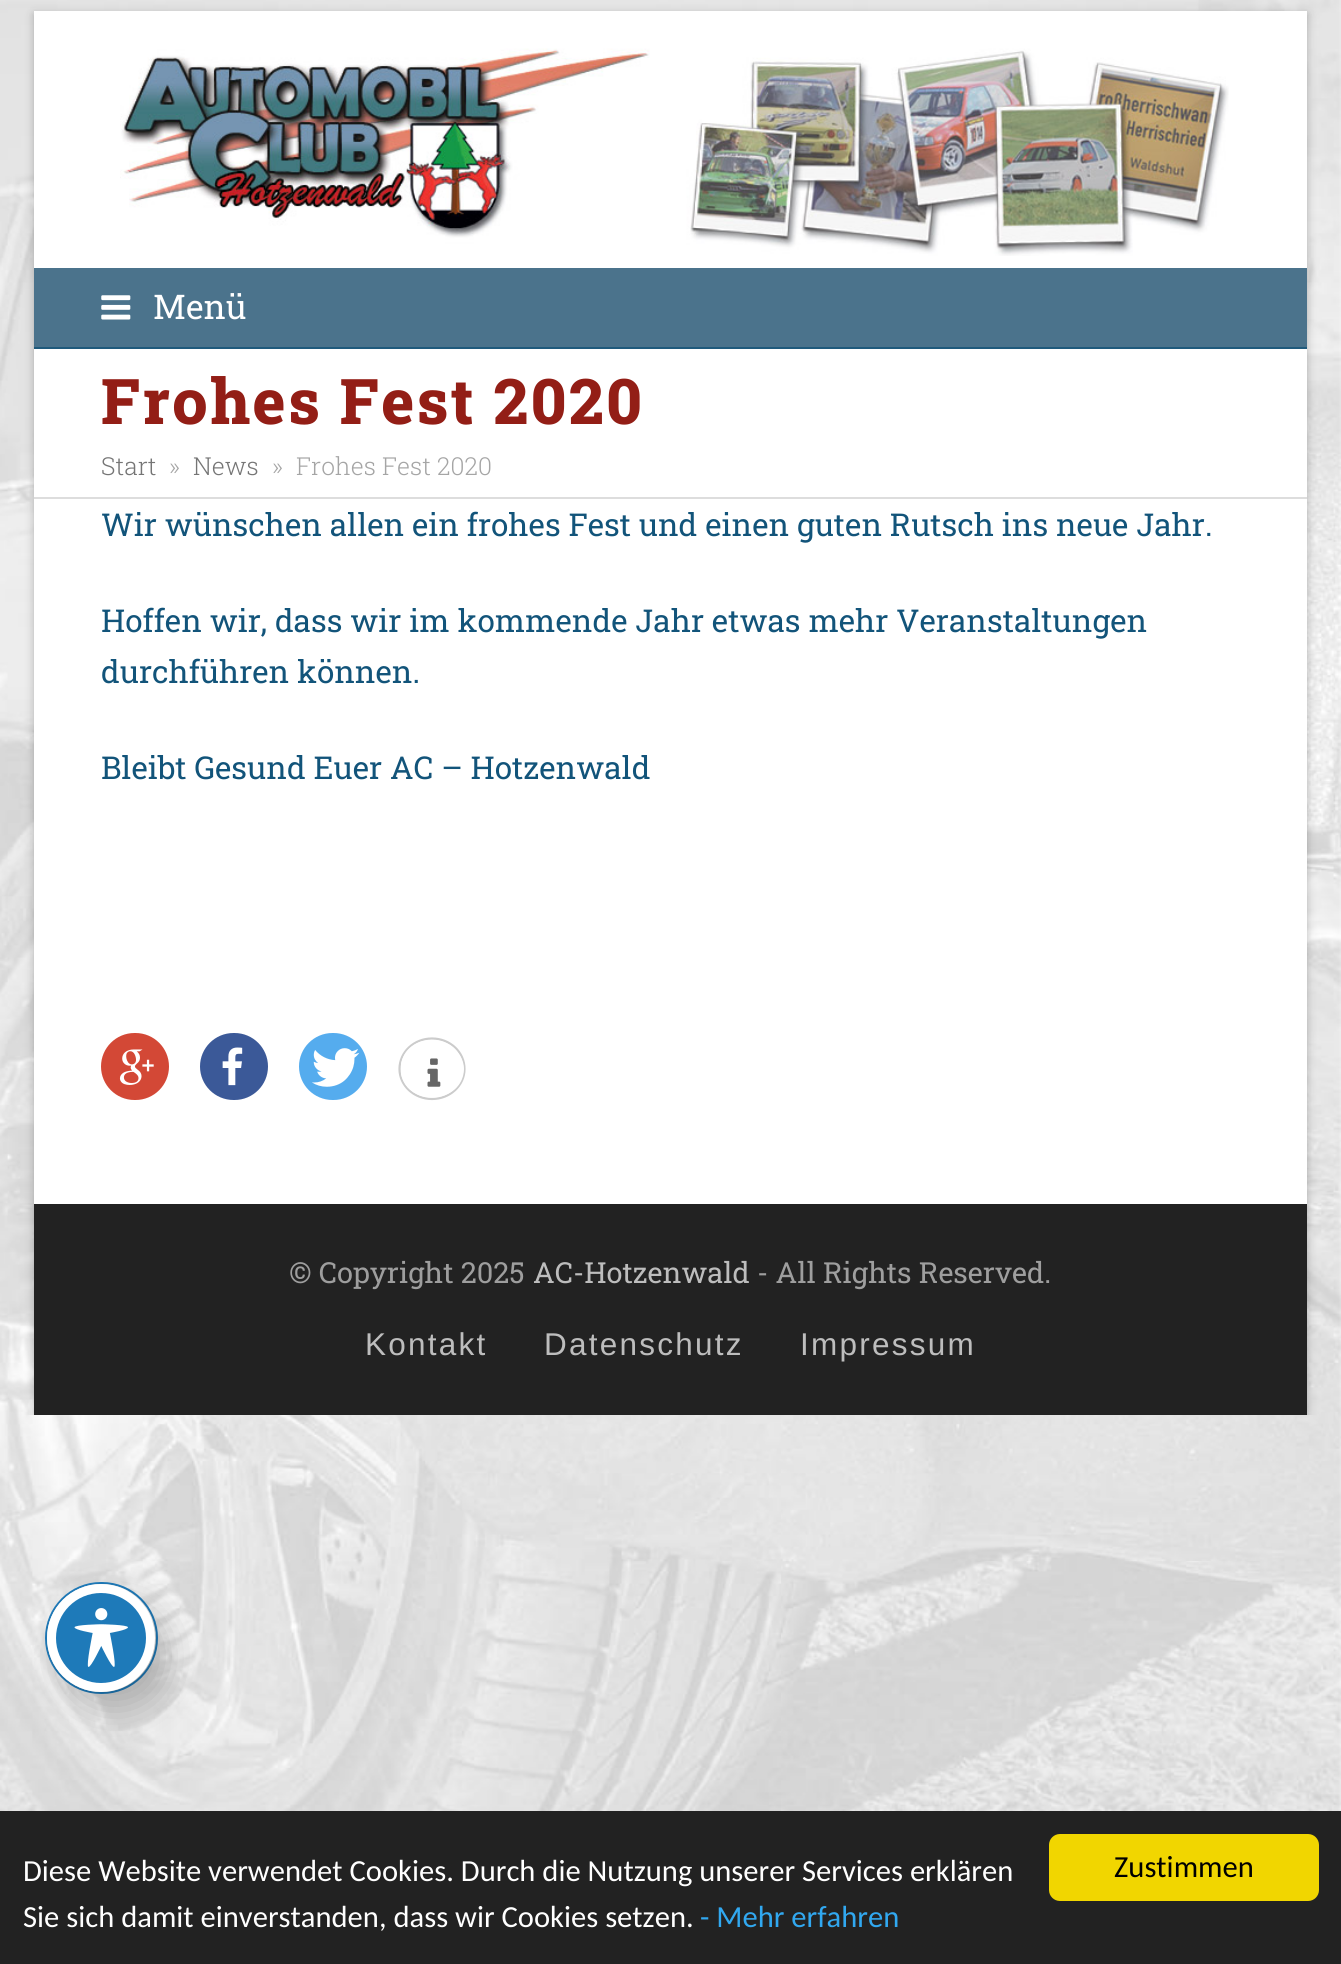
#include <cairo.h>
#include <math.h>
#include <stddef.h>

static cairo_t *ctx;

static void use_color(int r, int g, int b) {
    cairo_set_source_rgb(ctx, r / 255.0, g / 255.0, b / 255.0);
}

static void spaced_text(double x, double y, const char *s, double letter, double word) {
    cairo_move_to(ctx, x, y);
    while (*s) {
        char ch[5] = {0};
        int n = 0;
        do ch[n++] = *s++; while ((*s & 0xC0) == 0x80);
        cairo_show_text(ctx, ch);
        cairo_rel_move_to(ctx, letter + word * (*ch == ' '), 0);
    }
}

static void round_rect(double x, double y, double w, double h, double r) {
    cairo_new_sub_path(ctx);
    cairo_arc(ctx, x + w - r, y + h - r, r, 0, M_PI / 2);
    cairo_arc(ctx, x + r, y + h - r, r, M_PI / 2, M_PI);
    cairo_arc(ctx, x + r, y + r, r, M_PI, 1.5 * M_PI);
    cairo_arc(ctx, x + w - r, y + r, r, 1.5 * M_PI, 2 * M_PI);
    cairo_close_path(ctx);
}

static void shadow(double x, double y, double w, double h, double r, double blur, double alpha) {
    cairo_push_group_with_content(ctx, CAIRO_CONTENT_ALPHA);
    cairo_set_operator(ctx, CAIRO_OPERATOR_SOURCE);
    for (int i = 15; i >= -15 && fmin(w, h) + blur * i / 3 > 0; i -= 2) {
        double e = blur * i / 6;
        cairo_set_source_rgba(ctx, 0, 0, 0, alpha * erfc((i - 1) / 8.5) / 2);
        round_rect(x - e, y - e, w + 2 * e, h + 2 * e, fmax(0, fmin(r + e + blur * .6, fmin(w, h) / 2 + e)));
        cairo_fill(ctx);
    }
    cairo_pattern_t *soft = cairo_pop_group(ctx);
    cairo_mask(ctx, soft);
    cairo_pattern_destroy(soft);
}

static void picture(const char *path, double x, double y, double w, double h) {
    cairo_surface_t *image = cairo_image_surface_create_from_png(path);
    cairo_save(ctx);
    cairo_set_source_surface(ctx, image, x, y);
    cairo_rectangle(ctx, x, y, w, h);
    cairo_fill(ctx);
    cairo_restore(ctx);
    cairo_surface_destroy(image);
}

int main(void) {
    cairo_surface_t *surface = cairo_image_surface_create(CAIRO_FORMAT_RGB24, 1341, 1964);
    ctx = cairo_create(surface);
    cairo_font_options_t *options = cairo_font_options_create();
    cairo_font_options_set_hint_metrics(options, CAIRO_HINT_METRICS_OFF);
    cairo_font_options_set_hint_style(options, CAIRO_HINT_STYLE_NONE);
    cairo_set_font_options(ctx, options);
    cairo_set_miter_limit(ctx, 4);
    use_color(255, 255, 255);
    cairo_paint(ctx);
    picture("img1.png", 0, 0, 1341, 1811);
    cairo_save(ctx);
    cairo_rectangle(ctx, 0, 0, 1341, 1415);
    cairo_clip(ctx);
    use_color(0, 0, 0);
    shadow(34, 14, 1273, 1404, 0, 4.5, 0.25);
    cairo_restore(ctx);
    use_color(255, 255, 255);
    cairo_rectangle(ctx, 34, 11, 1273, 1193);
    cairo_fill(ctx);
    picture("img2.png", 120, 48, 1109, 208);
    use_color(75, 115, 140);
    cairo_rectangle(ctx, 34, 268, 1273, 79);
    cairo_fill(ctx);
    picture("img3.png", 101, 295, 30, 25);
    cairo_select_font_face(ctx, "Roboto Slab", CAIRO_FONT_SLANT_NORMAL, CAIRO_FONT_WEIGHT_NORMAL);
    cairo_set_font_size(ctx, 34);
    use_color(255, 255, 255);
    cairo_move_to(ctx, 153, 319);
    cairo_show_text(ctx, "Menü");
    use_color(31, 90, 124);
    cairo_rectangle(ctx, 34, 347, 1273, 2);
    cairo_fill(ctx);
    use_color(221, 221, 221);
    cairo_rectangle(ctx, 34, 497, 1273, 2);
    cairo_fill(ctx);
    cairo_select_font_face(ctx, "Roboto Slab ExtraBold", CAIRO_FONT_SLANT_NORMAL, CAIRO_FONT_WEIGHT_NORMAL);
    cairo_set_font_size(ctx, 63);
    use_color(147, 30, 22);
    spaced_text(101, 424, "Frohes Fest 2020", 2.25, 0);
    cairo_select_font_face(ctx, "Roboto Slab Light", CAIRO_FONT_SLANT_NORMAL, CAIRO_FONT_WEIGHT_NORMAL);
    cairo_set_font_size(ctx, 24.75);
    use_color(117, 117, 117);
    cairo_move_to(ctx, 101, 475);
    cairo_show_text(ctx, "Start");
    use_color(165, 165, 165);
    cairo_move_to(ctx, 169, 475);
    cairo_show_text(ctx, "»");
    use_color(117, 117, 117);
    cairo_move_to(ctx, 193, 475);
    cairo_show_text(ctx, "News");
    use_color(165, 165, 165);
    cairo_move_to(ctx, 272, 475);
    cairo_show_text(ctx, "»");
    cairo_move_to(ctx, 296, 475);
    cairo_show_text(ctx, "Frohes Fest 2020");
    cairo_select_font_face(ctx, "Roboto Slab", CAIRO_FONT_SLANT_NORMAL, CAIRO_FONT_WEIGHT_NORMAL);
    cairo_set_font_size(ctx, 31.5);
    use_color(18, 84, 122);
    cairo_move_to(ctx, 101, 536);
    cairo_show_text(ctx, "Wir wünschen allen ein frohes Fest und einen guten Rutsch ins neue Jahr.");
    cairo_move_to(ctx, 101, 632);
    cairo_show_text(ctx, "Hoffen wir, dass wir im kommende Jahr etwas mehr Veranstaltungen");
    cairo_move_to(ctx, 101, 683);
    cairo_show_text(ctx, "durchführen können.");
    cairo_move_to(ctx, 101, 779);
    cairo_show_text(ctx, "Bleibt Gesund Euer AC – Hotzenwald");
    use_color(211, 72, 54);
    round_rect(101, 1033, 68, 67, 33.5);
    cairo_fill(ctx);
    picture("img4.png", 119, 1049, 35, 36);
    use_color(59, 89, 152);
    round_rect(200, 1033, 68, 67, 33.5);
    cairo_fill(ctx);
    picture("img5.png", 222, 1047, 21, 39);
    use_color(85, 172, 238);
    round_rect(299, 1033, 68, 67, 33.5);
    cairo_fill(ctx);
    picture("img6.png", 312, 1048, 48, 39);
    cairo_new_path(ctx);
    cairo_move_to(ctx, 432, 1038.5);
    cairo_curve_to(ctx, 450, 1038.5, 464.5, 1052, 464.5, 1069);
    cairo_curve_to(ctx, 464.5, 1085.5, 450, 1099, 432, 1099);
    cairo_curve_to(ctx, 414, 1099, 399.5, 1085.5, 399.5, 1069);
    cairo_curve_to(ctx, 399.5, 1052, 414, 1038.5, 432, 1038.5);
    cairo_close_path(ctx);
    use_color(204, 204, 204);
    cairo_set_line_width(ctx, 2.2);
    cairo_stroke(ctx);
    use_color(255, 255, 255);
    cairo_new_path(ctx);
    cairo_move_to(ctx, 401, 1064);
    cairo_curve_to(ctx, 406, 1036, 445, 1032, 459, 1054);
    cairo_curve_to(ctx, 462, 1058, 464, 1064, 464, 1069);
    cairo_curve_to(ctx, 463, 1104, 408, 1108, 401, 1074);
    cairo_close_path(ctx);
    cairo_fill(ctx);
    picture("img7.png", 427, 1058, 14, 29);
    use_color(34, 34, 34);
    cairo_rectangle(ctx, 34, 1204, 1273, 211);
    cairo_fill(ctx);
    cairo_set_font_size(ctx, 29);
    use_color(158, 158, 158);
    cairo_move_to(ctx, 289, 1283);
    cairo_show_text(ctx, "© Copyright 2025");
    use_color(189, 189, 189);
    cairo_move_to(ctx, 533, 1283);
    cairo_show_text(ctx, "AC-Hotzenwald");
    use_color(158, 158, 158);
    cairo_move_to(ctx, 757, 1283);
    cairo_show_text(ctx, "- All Rights Reserved.");
    cairo_select_font_face(ctx, "Liberation Sans", CAIRO_FONT_SLANT_NORMAL, CAIRO_FONT_WEIGHT_NORMAL);
    cairo_set_font_size(ctx, 31.5);
    use_color(189, 189, 189);
    spaced_text(365, 1355, "Kontakt", 2.25, 0);
    spaced_text(544, 1355, "Datenschutz", 2.25, 0);
    spaced_text(800, 1355, "Impressum", 2.25, 0);
    round_rect(46, 1583, 111, 110, 55);
    use_color(30, 122, 185);
    cairo_set_line_width(ctx, 2);
    cairo_stroke(ctx);
    use_color(0, 0, 0);
    shadow(61, 1602, 108, 108, 54, 18, 0.2);
    use_color(30, 122, 185);
    cairo_arc(ctx, 101, 1638, 49.5, 0, 2 * M_PI);
    cairo_fill_preserve(ctx);
    use_color(255, 255, 255);
    cairo_set_line_width(ctx, 9);
    cairo_stroke(ctx);
    picture("img8.png", 74, 1608, 54, 59);
    use_color(34, 34, 34);
    cairo_rectangle(ctx, 0, 1811, 1341, 153);
    cairo_fill(ctx);
    cairo_select_font_face(ctx, "Carlito", CAIRO_FONT_SLANT_NORMAL, CAIRO_FONT_WEIGHT_NORMAL);
    cairo_set_font_size(ctx, 30.6);
    use_color(255, 255, 255);
    cairo_move_to(ctx, 23, 1881);
    cairo_show_text(ctx, "Diese Website verwendet Cookies. Durch die Nutzung unserer Services erklären");
    cairo_move_to(ctx, 23, 1927);
    cairo_show_text(ctx, "Sie sich damit einverstanden, dass wir Cookies setzen.");
    use_color(49, 168, 240);
    cairo_move_to(ctx, 700, 1927);
    cairo_show_text(ctx, "- Mehr erfahren");
    use_color(241, 214, 0);
    round_rect(1049, 1834, 270, 67, 11);
    cairo_fill(ctx);
    use_color(0, 0, 0);
    cairo_move_to(ctx, 1114, 1877);
    cairo_show_text(ctx, "Zustimmen");
    cairo_surface_write_to_png(surface, "result.png");
    cairo_font_options_destroy(options);
    cairo_destroy(ctx);
    cairo_surface_destroy(surface);
    return 0;
}
